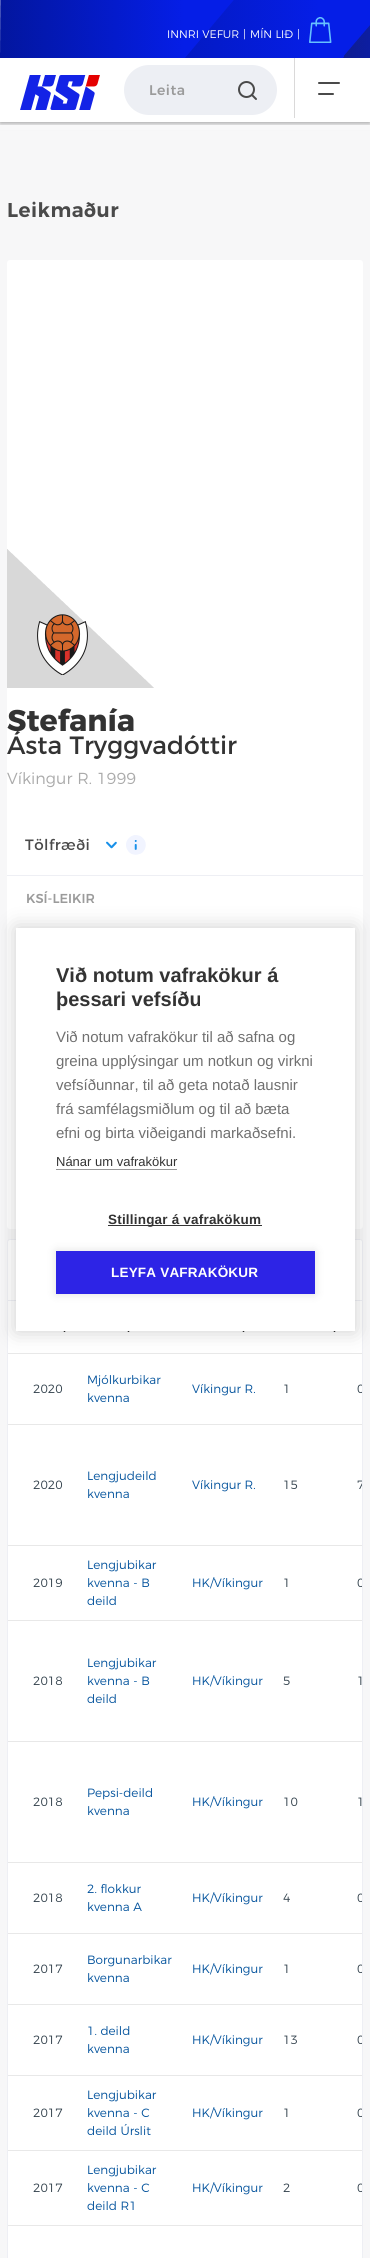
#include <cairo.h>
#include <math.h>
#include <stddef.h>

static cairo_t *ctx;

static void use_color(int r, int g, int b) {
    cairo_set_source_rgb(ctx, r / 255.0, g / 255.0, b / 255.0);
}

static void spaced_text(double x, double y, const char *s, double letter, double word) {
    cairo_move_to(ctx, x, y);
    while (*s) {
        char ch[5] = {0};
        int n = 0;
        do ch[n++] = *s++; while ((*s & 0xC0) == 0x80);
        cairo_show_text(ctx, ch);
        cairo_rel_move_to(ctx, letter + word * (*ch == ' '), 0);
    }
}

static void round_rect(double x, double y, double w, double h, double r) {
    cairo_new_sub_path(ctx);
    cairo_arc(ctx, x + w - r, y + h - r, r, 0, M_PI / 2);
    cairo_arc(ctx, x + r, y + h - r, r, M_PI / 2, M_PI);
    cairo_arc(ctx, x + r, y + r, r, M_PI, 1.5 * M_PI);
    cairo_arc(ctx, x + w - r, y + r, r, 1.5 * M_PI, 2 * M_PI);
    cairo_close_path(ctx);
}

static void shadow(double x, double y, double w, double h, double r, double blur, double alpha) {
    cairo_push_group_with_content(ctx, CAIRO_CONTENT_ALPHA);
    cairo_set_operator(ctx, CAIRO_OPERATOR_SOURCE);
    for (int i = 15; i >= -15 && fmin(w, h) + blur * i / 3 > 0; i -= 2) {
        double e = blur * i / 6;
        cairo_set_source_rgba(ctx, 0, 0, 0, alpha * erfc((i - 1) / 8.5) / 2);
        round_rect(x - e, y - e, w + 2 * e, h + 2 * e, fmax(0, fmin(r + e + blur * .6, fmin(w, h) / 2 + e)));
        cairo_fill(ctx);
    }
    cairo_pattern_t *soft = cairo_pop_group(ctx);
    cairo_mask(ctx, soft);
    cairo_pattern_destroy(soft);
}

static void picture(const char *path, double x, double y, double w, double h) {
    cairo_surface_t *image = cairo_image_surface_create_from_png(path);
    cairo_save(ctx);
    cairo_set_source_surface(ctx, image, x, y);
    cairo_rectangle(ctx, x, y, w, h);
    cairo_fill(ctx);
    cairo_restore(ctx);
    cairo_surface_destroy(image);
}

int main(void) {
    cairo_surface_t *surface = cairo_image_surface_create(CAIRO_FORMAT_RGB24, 370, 2258);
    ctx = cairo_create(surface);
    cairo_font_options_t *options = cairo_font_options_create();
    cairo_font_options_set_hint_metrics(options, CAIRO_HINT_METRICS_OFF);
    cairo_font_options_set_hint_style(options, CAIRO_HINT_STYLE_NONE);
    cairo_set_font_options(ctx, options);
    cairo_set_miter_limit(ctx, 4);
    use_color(247, 247, 248);
    cairo_paint(ctx);
    use_color(0, 0, 0);
    shadow(0, 0, 370, 122, 0, 3.5, 0.5);
    use_color(255, 255, 255);
    cairo_rectangle(ctx, 0, 0, 370, 122);
    cairo_fill(ctx);
    picture("img1.png", 0, 0, 370, 58);
    cairo_select_font_face(ctx, "Montserrat Light", CAIRO_FONT_SLANT_NORMAL, CAIRO_FONT_WEIGHT_NORMAL);
    cairo_set_font_size(ctx, 11);
    cairo_move_to(ctx, 167, 38);
    cairo_show_text(ctx, "INNRI VEFUR");
    cairo_move_to(ctx, 243, 38);
    cairo_show_text(ctx, "|");
    cairo_move_to(ctx, 250, 38);
    cairo_show_text(ctx, "MÍN LIÐ");
    cairo_move_to(ctx, 297, 38);
    cairo_show_text(ctx, "|");
    picture("img2.png", 309, 17, 23, 26);
    picture("img3.png", 20, 75, 80, 35);
    use_color(237, 239, 244);
    round_rect(124, 65, 153, 50, 25);
    cairo_fill(ctx);
    cairo_select_font_face(ctx, "Montserrat Medium", CAIRO_FONT_SLANT_NORMAL, CAIRO_FONT_WEIGHT_NORMAL);
    cairo_set_font_size(ctx, 14);
    use_color(155, 155, 155);
    spaced_text(149, 95, "Leita", 0.5, 0);
    cairo_new_path(ctx);
    cairo_arc(ctx, 246.5, 89.5, 7.5, 0, 2 * M_PI);
    use_color(74, 74, 74);
    cairo_stroke(ctx);
    cairo_new_path(ctx);
    cairo_move_to(ctx, 256, 99);
    cairo_line_to(ctx, 252, 95);
    cairo_set_line_cap(ctx, CAIRO_LINE_CAP_ROUND);
    cairo_stroke(ctx);
    use_color(218, 217, 217);
    cairo_rectangle(ctx, 294, 58, 1, 60);
    cairo_fill(ctx);
    use_color(74, 74, 74);
    round_rect(318, 82, 22, 2, 1);
    cairo_fill(ctx);
    round_rect(318, 93, 16, 2, 1);
    cairo_fill(ctx);
    use_color(248, 248, 249);
    cairo_rectangle(ctx, 0, 125, 370, 5);
    cairo_fill(ctx);
    cairo_select_font_face(ctx, "Montserrat SemiBold", CAIRO_FONT_SLANT_NORMAL, CAIRO_FONT_WEIGHT_NORMAL);
    cairo_set_font_size(ctx, 20);
    use_color(74, 74, 74);
    spaced_text(7, 217, "Leikmaður", 0.5, 0);
    use_color(255, 255, 255);
    round_rect(7, 260, 356, 969, 3);
    cairo_fill(ctx);
    picture("img4.png", 7, 549, 147, 139);
    picture("img5.png", 37, 614, 51, 61);
    cairo_select_font_face(ctx, "Montserrat", CAIRO_FONT_SLANT_NORMAL, CAIRO_FONT_WEIGHT_BOLD);
    cairo_set_font_size(ctx, 30);
    use_color(51, 51, 51);
    cairo_move_to(ctx, 7, 731);
    cairo_show_text(ctx, "Stefanía");
    cairo_select_font_face(ctx, "Montserrat", CAIRO_FONT_SLANT_NORMAL, CAIRO_FONT_WEIGHT_NORMAL);
    cairo_set_font_size(ctx, 25);
    cairo_move_to(ctx, 7, 754);
    cairo_show_text(ctx, "Ásta Tryggvadóttir");
    cairo_select_font_face(ctx, "Montserrat Light", CAIRO_FONT_SLANT_NORMAL, CAIRO_FONT_WEIGHT_NORMAL);
    cairo_set_font_size(ctx, 16);
    use_color(170, 170, 170);
    cairo_move_to(ctx, 7, 784);
    cairo_show_text(ctx, "Víkingur R. 1999");
    use_color(238, 239, 244);
    cairo_rectangle(ctx, 7, 875, 356, 1);
    cairo_fill(ctx);
    cairo_select_font_face(ctx, "Montserrat", CAIRO_FONT_SLANT_NORMAL, CAIRO_FONT_WEIGHT_NORMAL);
    cairo_set_font_size(ctx, 15);
    use_color(74, 74, 74);
    spaced_text(25, 850, "Tölfræði", 0.5, 0);
    picture("img6.png", 106, 841, 11, 8);
    picture("img7.png", 126, 835, 20, 20);
    cairo_select_font_face(ctx, "Montserrat Medium", CAIRO_FONT_SLANT_NORMAL, CAIRO_FONT_WEIGHT_NORMAL);
    cairo_set_font_size(ctx, 13);
    use_color(155, 155, 155);
    cairo_move_to(ctx, 26, 903);
    cairo_show_text(ctx, "KSÍ-LEIKIR");
    use_color(255, 255, 255);
    round_rect(7.5, 1239.5, 355, 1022, 2.5);
    cairo_fill_preserve(ctx);
    use_color(238, 239, 244);
    cairo_set_line_width(ctx, 1);
    cairo_set_line_cap(ctx, CAIRO_LINE_CAP_BUTT);
    cairo_stroke(ctx);
    cairo_rectangle(ctx, 8, 1300, 354, 1);
    cairo_fill(ctx);
    picture("img8.png", 63, 1331, 3, 1);
    picture("img8.png", 127, 1331, 3, 1);
    picture("img8.png", 242, 1331, 3, 1);
    picture("img8.png", 333, 1331, 3, 1);
    use_color(232, 232, 232);
    cairo_rectangle(ctx, 8, 1353, 354, 1);
    cairo_fill(ctx);
    cairo_select_font_face(ctx, "Montserrat Light", CAIRO_FONT_SLANT_NORMAL, CAIRO_FONT_WEIGHT_NORMAL);
    cairo_set_font_size(ctx, 12);
    use_color(49, 64, 75);
    cairo_move_to(ctx, 33, 1393);
    cairo_show_text(ctx, "2020");
    use_color(2, 82, 156);
    cairo_move_to(ctx, 87, 1384);
    cairo_show_text(ctx, "Mjólkurbikar");
    cairo_move_to(ctx, 87, 1402);
    cairo_show_text(ctx, "kvenna");
    cairo_move_to(ctx, 192, 1393);
    cairo_show_text(ctx, "Víkingur R.");
    use_color(49, 64, 75);
    cairo_move_to(ctx, 283, 1393);
    cairo_show_text(ctx, "1");
    use_color(232, 232, 232);
    cairo_rectangle(ctx, 8, 1424, 354, 1);
    cairo_fill(ctx);
    cairo_save(ctx);
    cairo_rectangle(ctx, 8, 1301, 354, 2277);
    cairo_clip(ctx);
    use_color(49, 64, 75);
    cairo_move_to(ctx, 357, 1393);
    cairo_show_text(ctx, "0");
    cairo_restore(ctx);
    use_color(49, 64, 75);
    cairo_move_to(ctx, 33, 1489);
    cairo_show_text(ctx, "2020");
    use_color(2, 82, 156);
    cairo_move_to(ctx, 87, 1480);
    cairo_show_text(ctx, "Lengjudeild");
    cairo_move_to(ctx, 87, 1498);
    cairo_show_text(ctx, "kvenna");
    cairo_move_to(ctx, 192, 1489);
    cairo_show_text(ctx, "Víkingur R.");
    use_color(49, 64, 75);
    cairo_move_to(ctx, 283, 1489);
    cairo_show_text(ctx, "15");
    use_color(232, 232, 232);
    cairo_rectangle(ctx, 8, 1545, 354, 1);
    cairo_fill(ctx);
    cairo_save(ctx);
    cairo_rectangle(ctx, 8, 1301, 354, 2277);
    cairo_clip(ctx);
    use_color(49, 64, 75);
    cairo_move_to(ctx, 357, 1489);
    cairo_show_text(ctx, "7");
    cairo_restore(ctx);
    use_color(49, 64, 75);
    cairo_move_to(ctx, 33, 1587);
    cairo_show_text(ctx, "2019");
    use_color(2, 82, 156);
    cairo_move_to(ctx, 87, 1569);
    cairo_show_text(ctx, "Lengjubikar");
    cairo_move_to(ctx, 87, 1587);
    cairo_show_text(ctx, "kvenna - B");
    cairo_move_to(ctx, 87, 1605);
    cairo_show_text(ctx, "deild");
    cairo_move_to(ctx, 192, 1587);
    cairo_show_text(ctx, "HK/Víkingur");
    use_color(49, 64, 75);
    cairo_move_to(ctx, 283, 1587);
    cairo_show_text(ctx, "1");
    use_color(232, 232, 232);
    cairo_rectangle(ctx, 8, 1620, 354, 1);
    cairo_fill(ctx);
    cairo_save(ctx);
    cairo_rectangle(ctx, 8, 1301, 354, 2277);
    cairo_clip(ctx);
    use_color(49, 64, 75);
    cairo_move_to(ctx, 357, 1587);
    cairo_show_text(ctx, "0");
    cairo_restore(ctx);
    use_color(49, 64, 75);
    cairo_move_to(ctx, 33, 1685);
    cairo_show_text(ctx, "2018");
    use_color(2, 82, 156);
    cairo_move_to(ctx, 87, 1667);
    cairo_show_text(ctx, "Lengjubikar");
    cairo_move_to(ctx, 87, 1685);
    cairo_show_text(ctx, "kvenna - B");
    cairo_move_to(ctx, 87, 1703);
    cairo_show_text(ctx, "deild");
    cairo_move_to(ctx, 192, 1685);
    cairo_show_text(ctx, "HK/Víkingur");
    use_color(49, 64, 75);
    cairo_move_to(ctx, 283, 1685);
    cairo_show_text(ctx, "5");
    use_color(232, 232, 232);
    cairo_rectangle(ctx, 8, 1741, 354, 1);
    cairo_fill(ctx);
    use_color(49, 64, 75);
    cairo_move_to(ctx, 357, 1685);
    cairo_show_text(ctx, "1");
    cairo_move_to(ctx, 33, 1806);
    cairo_show_text(ctx, "2018");
    use_color(2, 82, 156);
    cairo_move_to(ctx, 87, 1797);
    cairo_show_text(ctx, "Pepsi-deild");
    cairo_move_to(ctx, 87, 1815);
    cairo_show_text(ctx, "kvenna");
    cairo_move_to(ctx, 192, 1806);
    cairo_show_text(ctx, "HK/Víkingur");
    use_color(49, 64, 75);
    cairo_move_to(ctx, 283, 1806);
    cairo_show_text(ctx, "10");
    use_color(232, 232, 232);
    cairo_rectangle(ctx, 8, 1862, 354, 1);
    cairo_fill(ctx);
    use_color(49, 64, 75);
    cairo_move_to(ctx, 357, 1806);
    cairo_show_text(ctx, "1");
    cairo_move_to(ctx, 33, 1902);
    cairo_show_text(ctx, "2018");
    use_color(2, 82, 156);
    cairo_move_to(ctx, 87, 1893);
    cairo_show_text(ctx, "2. flokkur");
    cairo_move_to(ctx, 87, 1911);
    cairo_show_text(ctx, "kvenna A");
    cairo_move_to(ctx, 192, 1902);
    cairo_show_text(ctx, "HK/Víkingur");
    use_color(49, 64, 75);
    cairo_move_to(ctx, 283, 1902);
    cairo_show_text(ctx, "4");
    use_color(232, 232, 232);
    cairo_rectangle(ctx, 8, 1933, 354, 1);
    cairo_fill(ctx);
    cairo_save(ctx);
    cairo_rectangle(ctx, 8, 1301, 354, 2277);
    cairo_clip(ctx);
    use_color(49, 64, 75);
    cairo_move_to(ctx, 357, 1902);
    cairo_show_text(ctx, "0");
    cairo_restore(ctx);
    use_color(49, 64, 75);
    cairo_move_to(ctx, 33, 1973);
    cairo_show_text(ctx, "2017");
    use_color(2, 82, 156);
    cairo_move_to(ctx, 87, 1964);
    cairo_show_text(ctx, "Borgunarbikar");
    cairo_move_to(ctx, 87, 1982);
    cairo_show_text(ctx, "kvenna");
    cairo_move_to(ctx, 192, 1973);
    cairo_show_text(ctx, "HK/Víkingur");
    use_color(49, 64, 75);
    cairo_move_to(ctx, 283, 1973);
    cairo_show_text(ctx, "1");
    use_color(232, 232, 232);
    cairo_rectangle(ctx, 8, 2004, 354, 1);
    cairo_fill(ctx);
    cairo_save(ctx);
    cairo_rectangle(ctx, 8, 1301, 354, 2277);
    cairo_clip(ctx);
    use_color(49, 64, 75);
    cairo_move_to(ctx, 357, 1973);
    cairo_show_text(ctx, "0");
    cairo_restore(ctx);
    use_color(49, 64, 75);
    cairo_move_to(ctx, 33, 2044);
    cairo_show_text(ctx, "2017");
    use_color(2, 82, 156);
    cairo_move_to(ctx, 87, 2035);
    cairo_show_text(ctx, "1. deild");
    cairo_move_to(ctx, 87, 2053);
    cairo_show_text(ctx, "kvenna");
    cairo_move_to(ctx, 192, 2044);
    cairo_show_text(ctx, "HK/Víkingur");
    use_color(49, 64, 75);
    cairo_move_to(ctx, 283, 2044);
    cairo_show_text(ctx, "13");
    use_color(232, 232, 232);
    cairo_rectangle(ctx, 8, 2075, 354, 1);
    cairo_fill(ctx);
    cairo_save(ctx);
    cairo_rectangle(ctx, 8, 1301, 354, 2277);
    cairo_clip(ctx);
    use_color(49, 64, 75);
    cairo_move_to(ctx, 357, 2044);
    cairo_show_text(ctx, "0");
    cairo_restore(ctx);
    use_color(49, 64, 75);
    cairo_move_to(ctx, 33, 2117);
    cairo_show_text(ctx, "2017");
    use_color(2, 82, 156);
    cairo_move_to(ctx, 87, 2099);
    cairo_show_text(ctx, "Lengjubikar");
    cairo_move_to(ctx, 87, 2117);
    cairo_show_text(ctx, "kvenna - C");
    cairo_move_to(ctx, 87, 2135);
    cairo_show_text(ctx, "deild Úrslit");
    cairo_move_to(ctx, 192, 2117);
    cairo_show_text(ctx, "HK/Víkingur");
    use_color(49, 64, 75);
    cairo_move_to(ctx, 283, 2117);
    cairo_show_text(ctx, "1");
    use_color(232, 232, 232);
    cairo_rectangle(ctx, 8, 2150, 354, 1);
    cairo_fill(ctx);
    cairo_save(ctx);
    cairo_rectangle(ctx, 8, 1301, 354, 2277);
    cairo_clip(ctx);
    use_color(49, 64, 75);
    cairo_move_to(ctx, 357, 2117);
    cairo_show_text(ctx, "0");
    cairo_restore(ctx);
    use_color(49, 64, 75);
    cairo_move_to(ctx, 33, 2192);
    cairo_show_text(ctx, "2017");
    use_color(2, 82, 156);
    cairo_move_to(ctx, 87, 2174);
    cairo_show_text(ctx, "Lengjubikar");
    cairo_move_to(ctx, 87, 2192);
    cairo_show_text(ctx, "kvenna - C");
    cairo_move_to(ctx, 87, 2210);
    cairo_show_text(ctx, "deild R1");
    cairo_move_to(ctx, 192, 2192);
    cairo_show_text(ctx, "HK/Víkingur");
    use_color(49, 64, 75);
    cairo_move_to(ctx, 283, 2192);
    cairo_show_text(ctx, "2");
    use_color(232, 232, 232);
    cairo_rectangle(ctx, 8, 2225, 354, 1);
    cairo_fill(ctx);
    cairo_save(ctx);
    cairo_rectangle(ctx, 8, 1301, 354, 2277);
    cairo_clip(ctx);
    use_color(49, 64, 75);
    cairo_move_to(ctx, 357, 2192);
    cairo_show_text(ctx, "0");
    cairo_restore(ctx);
    use_color(0, 0, 0);
    shadow(16, 928, 339, 403, 0, 10, 0.2);
    use_color(255, 255, 255);
    cairo_rectangle(ctx, 16, 928, 339, 403);
    cairo_fill(ctx);
    cairo_select_font_face(ctx, "Liberation Sans", CAIRO_FONT_SLANT_NORMAL, CAIRO_FONT_WEIGHT_BOLD);
    cairo_set_font_size(ctx, 20);
    use_color(51, 51, 51);
    cairo_move_to(ctx, 56, 982);
    cairo_show_text(ctx, "Við notum vafrakökur á");
    cairo_move_to(ctx, 56, 1006);
    cairo_show_text(ctx, "þessari vefsíðu");
    cairo_select_font_face(ctx, "Liberation Sans", CAIRO_FONT_SLANT_NORMAL, CAIRO_FONT_WEIGHT_NORMAL);
    cairo_set_font_size(ctx, 15);
    use_color(112, 112, 112);
    cairo_move_to(ctx, 56, 1042);
    cairo_show_text(ctx, "Við notum vafrakökur til að safna og");
    cairo_move_to(ctx, 56, 1066);
    cairo_show_text(ctx, "greina upplýsingar um notkun og virkni");
    cairo_move_to(ctx, 56, 1090);
    cairo_show_text(ctx, "vefsíðunnar, til að geta notað lausnir");
    cairo_move_to(ctx, 56, 1114);
    cairo_show_text(ctx, "frá samfélagsmiðlum og til að bæta");
    cairo_move_to(ctx, 56, 1138);
    cairo_show_text(ctx, "efni og birta viðeigandi markaðsefni.");
    cairo_set_font_size(ctx, 13);
    use_color(51, 51, 51);
    cairo_move_to(ctx, 56, 1166);
    cairo_show_text(ctx, "Nánar um vafrakökur");
    use_color(153, 153, 153);
    cairo_rectangle(ctx, 56, 1169, 121, 1);
    cairo_fill(ctx);
    use_color(51, 51, 51);
    cairo_rectangle(ctx, 108, 1225, 154, 1);
    cairo_fill(ctx);
    cairo_select_font_face(ctx, "Liberation Sans", CAIRO_FONT_SLANT_NORMAL, CAIRO_FONT_WEIGHT_BOLD);
    cairo_set_font_size(ctx, 13.5);
    spaced_text(108, 1224, "Stillingar á vafrakökum", 0.2, 0);
    use_color(0, 0, 0);
    shadow(56, 1251, 259, 43, 0, 5, 0.12);
    use_color(45, 36, 230);
    cairo_rectangle(ctx, 56, 1251, 259, 43);
    cairo_fill(ctx);
    use_color(255, 255, 255);
    spaced_text(111, 1277, "LEYFA VAFRAKÖKUR", 0.2, 0);
    cairo_surface_write_to_png(surface, "result.png");
    cairo_font_options_destroy(options);
    cairo_destroy(ctx);
    cairo_surface_destroy(surface);
    return 0;
}
